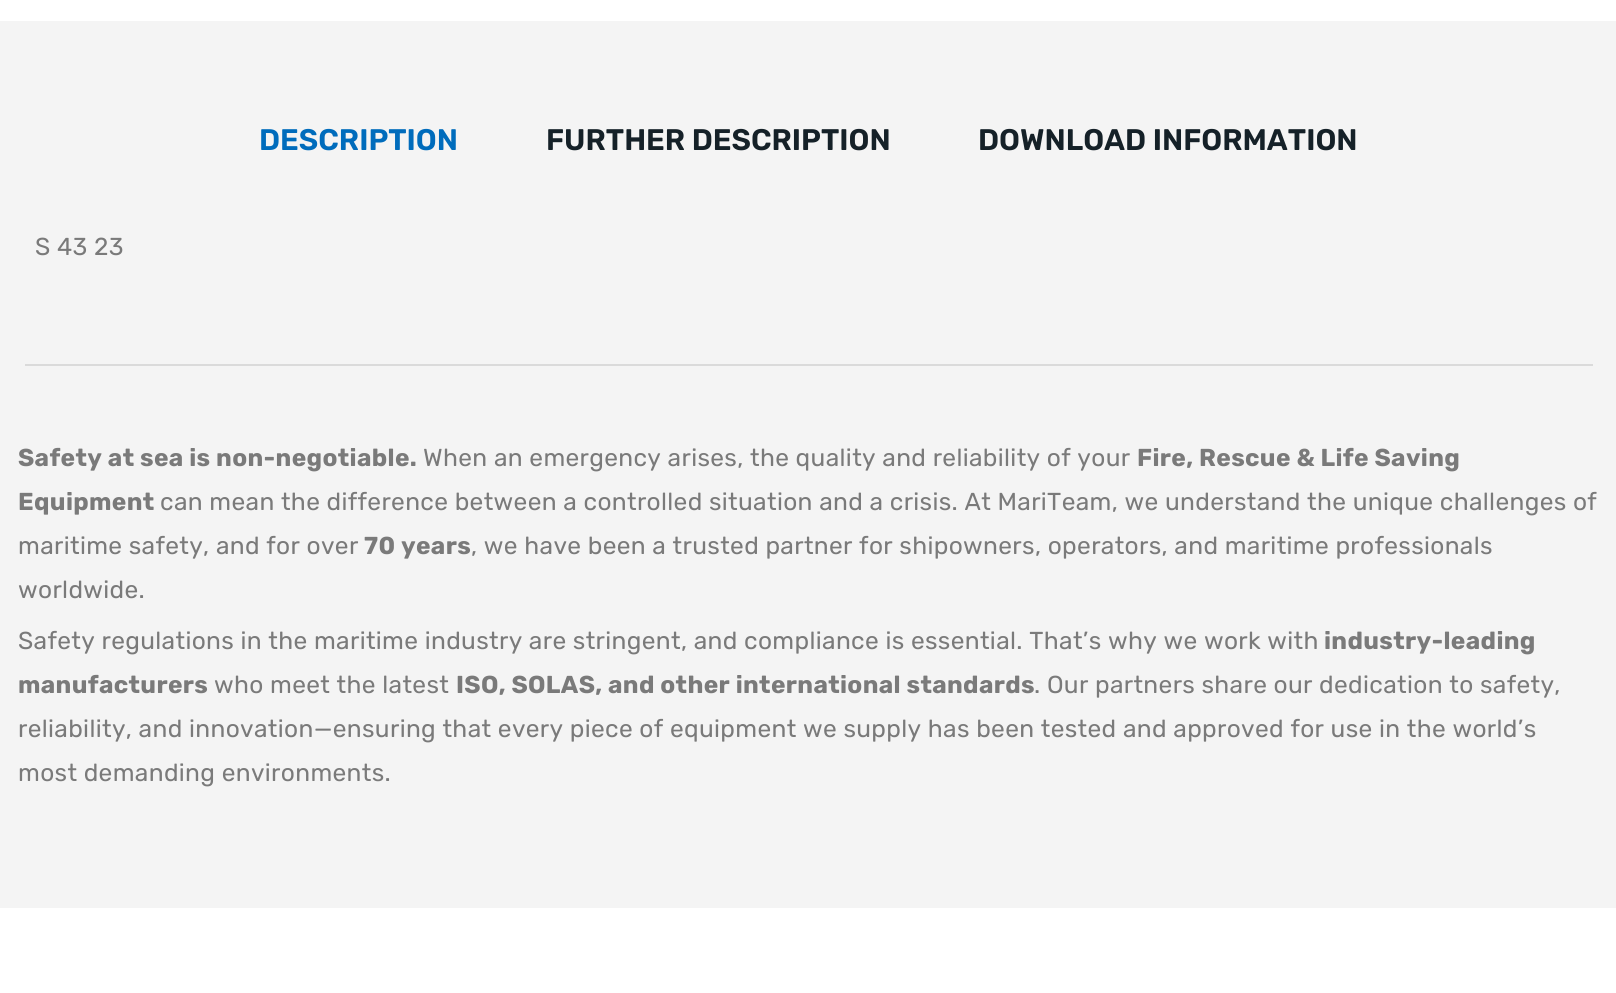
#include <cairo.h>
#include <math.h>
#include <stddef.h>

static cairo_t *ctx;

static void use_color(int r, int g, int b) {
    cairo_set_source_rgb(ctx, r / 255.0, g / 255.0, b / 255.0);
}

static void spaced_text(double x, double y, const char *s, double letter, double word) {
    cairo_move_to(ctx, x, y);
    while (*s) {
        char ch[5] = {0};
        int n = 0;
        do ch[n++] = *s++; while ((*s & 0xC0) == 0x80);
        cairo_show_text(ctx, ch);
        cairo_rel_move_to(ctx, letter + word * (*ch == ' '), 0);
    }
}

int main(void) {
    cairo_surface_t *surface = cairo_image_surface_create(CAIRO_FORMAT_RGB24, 1616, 993);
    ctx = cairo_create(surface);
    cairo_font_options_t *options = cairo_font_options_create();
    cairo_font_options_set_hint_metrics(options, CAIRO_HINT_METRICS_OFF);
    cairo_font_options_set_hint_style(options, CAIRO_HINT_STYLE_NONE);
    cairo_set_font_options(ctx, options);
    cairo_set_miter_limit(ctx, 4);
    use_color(255, 255, 255);
    cairo_paint(ctx);
    use_color(244, 244, 244);
    cairo_rectangle(ctx, 0, 21, 1616, 887);
    cairo_fill(ctx);
    cairo_select_font_face(ctx, "Rubik SemiBold", CAIRO_FONT_SLANT_NORMAL, CAIRO_FONT_WEIGHT_NORMAL);
    cairo_set_font_size(ctx, 29.75);
    use_color(0, 108, 188);
    cairo_move_to(ctx, 259, 150);
    cairo_show_text(ctx, "DESCRIPTION");
    use_color(21, 33, 40);
    cairo_move_to(ctx, 546, 150);
    cairo_show_text(ctx, "FURTHER DESCRIPTION");
    cairo_move_to(ctx, 978, 150);
    cairo_show_text(ctx, "DOWNLOAD INFORMATION");
    cairo_select_font_face(ctx, "Rubik", CAIRO_FONT_SLANT_NORMAL, CAIRO_FONT_WEIGHT_NORMAL);
    cairo_set_font_size(ctx, 24.5);
    use_color(122, 122, 122);
    spaced_text(35, 255, "S 43 23", 0.35, 0);
    use_color(218, 218, 218);
    cairo_rectangle(ctx, 25, 364, 1568, 2);
    cairo_fill(ctx);
    cairo_select_font_face(ctx, "Rubik", CAIRO_FONT_SLANT_NORMAL, CAIRO_FONT_WEIGHT_BOLD);
    use_color(122, 122, 122);
    spaced_text(18, 466, "Safety at sea is non-negotiable.", 0.35, 0);
    cairo_select_font_face(ctx, "Rubik", CAIRO_FONT_SLANT_NORMAL, CAIRO_FONT_WEIGHT_NORMAL);
    spaced_text(423, 466, "When an emergency arises, the quality and reliability of your", 0.35, 0);
    cairo_select_font_face(ctx, "Rubik", CAIRO_FONT_SLANT_NORMAL, CAIRO_FONT_WEIGHT_BOLD);
    spaced_text(1137, 466, "Fire, Rescue & Life Saving", 0.35, 0);
    spaced_text(18, 510, "Equipment", 0.35, 0);
    cairo_select_font_face(ctx, "Rubik", CAIRO_FONT_SLANT_NORMAL, CAIRO_FONT_WEIGHT_NORMAL);
    spaced_text(160, 510, "can mean the difference between a controlled situation and a crisis. At MariTeam, we understand the unique challenges of", 0.35, 0);
    spaced_text(18, 554, "maritime safety, and for over", 0.35, 0);
    cairo_select_font_face(ctx, "Rubik", CAIRO_FONT_SLANT_NORMAL, CAIRO_FONT_WEIGHT_BOLD);
    spaced_text(364, 554, "70 years", 0.35, 0);
    cairo_select_font_face(ctx, "Rubik", CAIRO_FONT_SLANT_NORMAL, CAIRO_FONT_WEIGHT_NORMAL);
    spaced_text(471, 554, ", we have been a trusted partner for shipowners, operators, and maritime professionals", 0.35, 0);
    spaced_text(18, 598, "worldwide.", 0.35, 0);
    spaced_text(18, 649, "Safety regulations in the maritime industry are stringent, and compliance is essential. That’s why we work with", 0.35, 0);
    cairo_select_font_face(ctx, "Rubik", CAIRO_FONT_SLANT_NORMAL, CAIRO_FONT_WEIGHT_BOLD);
    spaced_text(1324, 649, "industry-leading", 0.35, 0);
    spaced_text(18, 693, "manufacturers", 0.35, 0);
    cairo_select_font_face(ctx, "Rubik", CAIRO_FONT_SLANT_NORMAL, CAIRO_FONT_WEIGHT_NORMAL);
    spaced_text(214, 693, "who meet the latest", 0.35, 0);
    cairo_select_font_face(ctx, "Rubik", CAIRO_FONT_SLANT_NORMAL, CAIRO_FONT_WEIGHT_BOLD);
    spaced_text(456, 693, "ISO, SOLAS, and other international standards", 0.35, 0);
    cairo_select_font_face(ctx, "Rubik", CAIRO_FONT_SLANT_NORMAL, CAIRO_FONT_WEIGHT_NORMAL);
    spaced_text(1034, 693, ". Our partners share our dedication to safety,", 0.35, 0);
    spaced_text(18, 737, "reliability, and innovation—ensuring that every piece of equipment we supply has been tested and approved for use in the world’s", 0.35, 0);
    spaced_text(18, 781, "most demanding environments.", 0.35, 0);
    cairo_surface_write_to_png(surface, "result.png");
    cairo_font_options_destroy(options);
    cairo_destroy(ctx);
    cairo_surface_destroy(surface);
    return 0;
}
